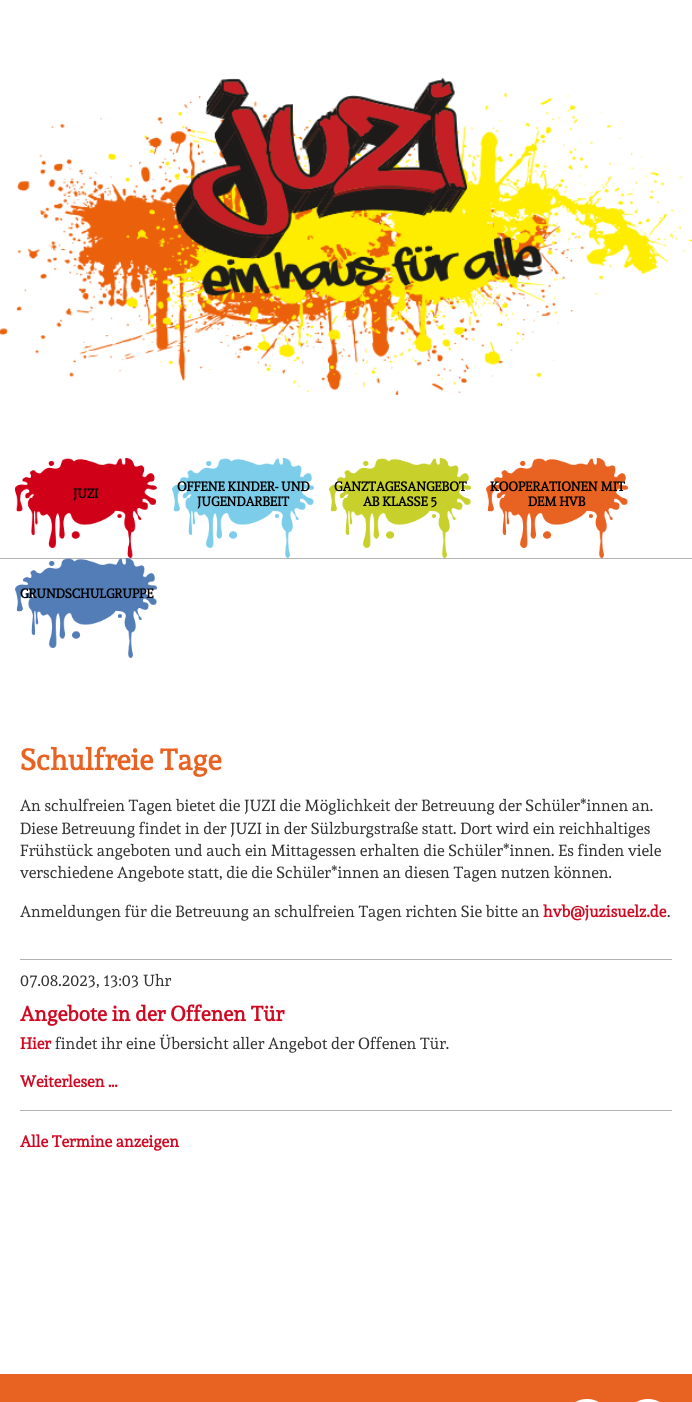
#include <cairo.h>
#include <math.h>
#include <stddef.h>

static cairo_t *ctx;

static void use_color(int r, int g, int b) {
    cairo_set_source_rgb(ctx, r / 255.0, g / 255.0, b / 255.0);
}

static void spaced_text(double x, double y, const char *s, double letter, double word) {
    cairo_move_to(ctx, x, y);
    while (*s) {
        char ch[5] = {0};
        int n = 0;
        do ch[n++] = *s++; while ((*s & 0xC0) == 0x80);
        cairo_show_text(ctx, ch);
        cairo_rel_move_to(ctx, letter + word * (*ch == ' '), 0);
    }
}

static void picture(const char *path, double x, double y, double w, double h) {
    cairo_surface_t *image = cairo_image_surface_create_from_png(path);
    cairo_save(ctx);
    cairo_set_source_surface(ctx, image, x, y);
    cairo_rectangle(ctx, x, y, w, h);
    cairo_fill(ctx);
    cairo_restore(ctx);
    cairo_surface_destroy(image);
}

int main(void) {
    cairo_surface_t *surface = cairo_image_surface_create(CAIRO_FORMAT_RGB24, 692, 1402);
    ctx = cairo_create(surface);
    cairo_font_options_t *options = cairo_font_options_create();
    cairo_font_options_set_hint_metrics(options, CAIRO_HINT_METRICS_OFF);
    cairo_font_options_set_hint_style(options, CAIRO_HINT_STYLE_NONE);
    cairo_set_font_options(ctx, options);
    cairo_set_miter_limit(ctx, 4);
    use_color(255, 255, 255);
    cairo_paint(ctx);
    use_color(179, 179, 179);
    cairo_rectangle(ctx, 0, 558, 692, 1);
    cairo_fill(ctx);
    picture("img1.png", 0, 78, 692, 317);
    picture("img2.png", 15, 458, 142, 100);
    cairo_select_font_face(ctx, "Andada", CAIRO_FONT_SLANT_NORMAL, CAIRO_FONT_WEIGHT_BOLD);
    cairo_set_font_size(ctx, 13);
    use_color(0, 0, 0);
    spaced_text(73, 498, "JUZI", -0.1, 0);
    picture("img3.png", 172, 458, 142, 100);
    spaced_text(177, 491, "OFFENE KINDER- UND", -0.1, 0);
    spaced_text(197, 506, "JUGENDARBEIT", -0.1, 0);
    picture("img4.png", 329, 458, 142, 100);
    spaced_text(334, 491, "GANZTAGESANGEBOT", -0.1, 0);
    spaced_text(363, 506, "AB KLASSE 5", -0.1, 0);
    picture("img5.png", 486, 458, 142, 100);
    spaced_text(490, 491, "KOOPERATIONEN MIT", -0.1, 0);
    spaced_text(528, 506, "DEM HVB", -0.1, 0);
    picture("img6.png", 15, 558, 142, 100);
    spaced_text(20, 598, "GRUNDSCHULGRUPPE", -0.1, 0);
    cairo_set_font_size(ctx, 29.25);
    use_color(232, 98, 34);
    cairo_move_to(ctx, 20, 770);
    cairo_show_text(ctx, "Schulfreie Tage");
    cairo_select_font_face(ctx, "Andada", CAIRO_FONT_SLANT_NORMAL, CAIRO_FONT_WEIGHT_NORMAL);
    cairo_set_font_size(ctx, 16);
    use_color(51, 51, 51);
    cairo_move_to(ctx, 20, 811);
    cairo_show_text(ctx, "An schulfreien Tagen bietet die JUZI die Möglichkeit der Betreuung der Schüler*innen an.");
    cairo_move_to(ctx, 20, 834);
    cairo_show_text(ctx, "Diese Betreuung findet in der JUZI in der Sülzburgstraße statt. Dort wird ein reichhaltiges");
    cairo_move_to(ctx, 20, 856);
    cairo_show_text(ctx, "Frühstück angeboten und auch ein Mittagessen erhalten die Schüler*innen. Es finden viele");
    cairo_move_to(ctx, 20, 878);
    cairo_show_text(ctx, "verschiedene Angebote statt, die die Schüler*innen an diesen Tagen nutzen können.");
    cairo_move_to(ctx, 20, 917);
    cairo_show_text(ctx, "Anmeldungen für die Betreuung an schulfreien Tagen richten Sie bitte an");
    cairo_select_font_face(ctx, "Andada", CAIRO_FONT_SLANT_NORMAL, CAIRO_FONT_WEIGHT_BOLD);
    use_color(207, 9, 34);
    cairo_move_to(ctx, 543, 917);
    cairo_show_text(ctx, "hvb@juzisuelz.de");
    cairo_select_font_face(ctx, "Andada", CAIRO_FONT_SLANT_NORMAL, CAIRO_FONT_WEIGHT_NORMAL);
    use_color(51, 51, 51);
    cairo_move_to(ctx, 667, 917);
    cairo_show_text(ctx, ".");
    use_color(179, 179, 179);
    cairo_rectangle(ctx, 20, 959, 652, 1);
    cairo_fill(ctx);
    cairo_rectangle(ctx, 20, 1110, 652, 1);
    cairo_fill(ctx);
    use_color(51, 51, 51);
    cairo_move_to(ctx, 20, 986);
    cairo_show_text(ctx, "07.08.2023, 13:03 Uhr");
    cairo_select_font_face(ctx, "Andada", CAIRO_FONT_SLANT_NORMAL, CAIRO_FONT_WEIGHT_BOLD);
    cairo_set_font_size(ctx, 20.75);
    use_color(207, 9, 34);
    cairo_move_to(ctx, 20, 1021);
    cairo_show_text(ctx, "Angebote in der Offenen Tür");
    cairo_set_font_size(ctx, 16);
    cairo_move_to(ctx, 20, 1049);
    cairo_show_text(ctx, "Hier");
    cairo_select_font_face(ctx, "Andada", CAIRO_FONT_SLANT_NORMAL, CAIRO_FONT_WEIGHT_NORMAL);
    use_color(51, 51, 51);
    cairo_move_to(ctx, 55, 1049);
    cairo_show_text(ctx, "findet ihr eine Übersicht aller Angebot der Offenen Tür.");
    cairo_select_font_face(ctx, "Andada", CAIRO_FONT_SLANT_NORMAL, CAIRO_FONT_WEIGHT_BOLD);
    use_color(207, 9, 34);
    cairo_move_to(ctx, 20, 1087);
    cairo_show_text(ctx, "Weiterlesen …");
    cairo_move_to(ctx, 20, 1147);
    cairo_show_text(ctx, "Alle Termine anzeigen");
    use_color(232, 98, 34);
    cairo_rectangle(ctx, 0, 1374, 692, 28);
    cairo_fill(ctx);
    picture("img7.png", 575, 1399, 24, 3);
    picture("img7.png", 636, 1399, 24, 3);
    cairo_surface_write_to_png(surface, "result.png");
    cairo_font_options_destroy(options);
    cairo_destroy(ctx);
    cairo_surface_destroy(surface);
    return 0;
}
